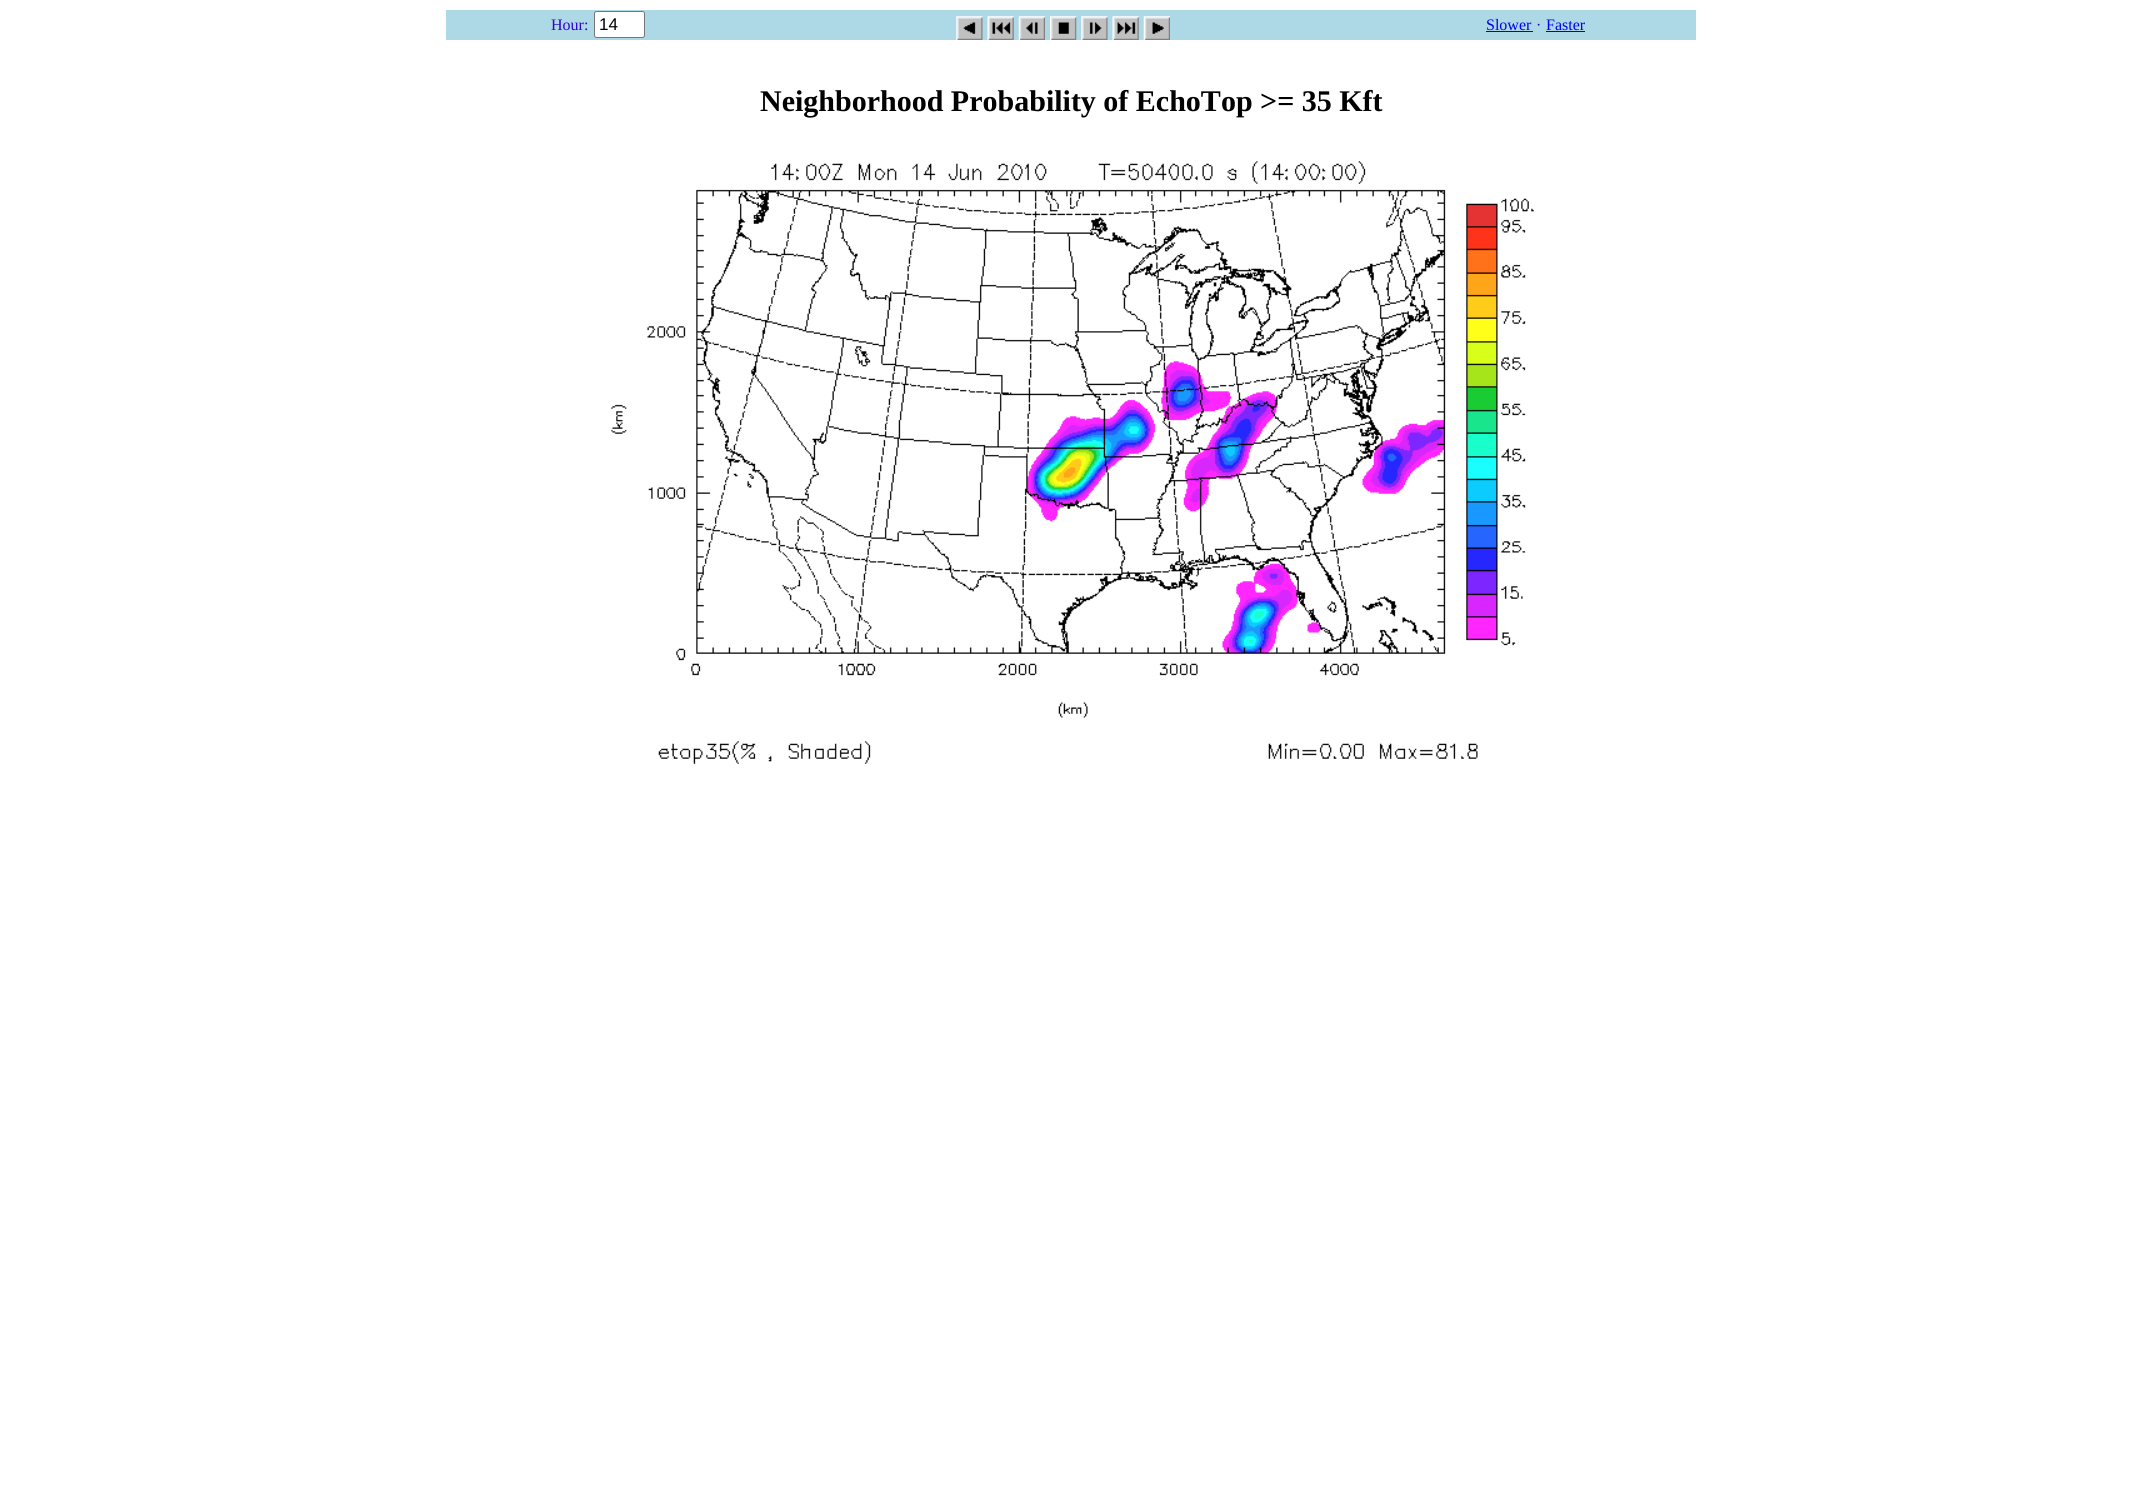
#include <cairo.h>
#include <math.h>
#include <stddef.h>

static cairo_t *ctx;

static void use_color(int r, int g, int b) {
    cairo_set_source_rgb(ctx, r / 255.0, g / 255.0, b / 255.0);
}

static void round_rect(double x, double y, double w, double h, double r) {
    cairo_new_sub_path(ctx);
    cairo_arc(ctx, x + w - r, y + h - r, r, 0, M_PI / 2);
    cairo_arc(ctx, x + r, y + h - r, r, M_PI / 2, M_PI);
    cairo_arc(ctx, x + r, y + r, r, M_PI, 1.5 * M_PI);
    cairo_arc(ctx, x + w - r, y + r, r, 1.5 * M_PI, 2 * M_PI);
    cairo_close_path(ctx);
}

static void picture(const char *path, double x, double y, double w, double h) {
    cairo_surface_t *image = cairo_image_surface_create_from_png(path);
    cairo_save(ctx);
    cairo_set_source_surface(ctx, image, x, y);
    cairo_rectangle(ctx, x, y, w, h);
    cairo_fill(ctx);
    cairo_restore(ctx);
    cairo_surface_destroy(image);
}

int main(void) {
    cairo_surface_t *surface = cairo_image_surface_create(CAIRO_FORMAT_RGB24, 2142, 1505);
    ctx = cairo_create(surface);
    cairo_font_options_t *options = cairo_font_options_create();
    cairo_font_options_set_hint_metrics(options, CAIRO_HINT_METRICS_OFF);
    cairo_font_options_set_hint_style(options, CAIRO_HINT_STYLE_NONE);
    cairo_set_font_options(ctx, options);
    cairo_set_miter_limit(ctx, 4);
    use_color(255, 255, 255);
    cairo_paint(ctx);
    use_color(173, 216, 230);
    cairo_rectangle(ctx, 446, 10, 1250, 30);
    cairo_fill(ctx);
    cairo_select_font_face(ctx, "Liberation Serif", CAIRO_FONT_SLANT_NORMAL, CAIRO_FONT_WEIGHT_NORMAL);
    cairo_set_font_size(ctx, 16);
    use_color(51, 0, 204);
    cairo_move_to(ctx, 551, 30);
    cairo_show_text(ctx, "Hour:");
    use_color(255, 255, 255);
    round_rect(594.5, 11.5, 50, 26, 2);
    cairo_fill_preserve(ctx);
    use_color(118, 118, 118);
    cairo_set_line_width(ctx, 1);
    cairo_stroke(ctx);
    cairo_select_font_face(ctx, "Liberation Sans", CAIRO_FONT_SLANT_NORMAL, CAIRO_FONT_WEIGHT_NORMAL);
    cairo_set_font_size(ctx, 17);
    use_color(0, 0, 0);
    cairo_move_to(ctx, 599, 30);
    cairo_show_text(ctx, "14");
    picture("img1.png", 956, 16, 27, 24);
    picture("img2.png", 987, 16, 27, 24);
    picture("img3.png", 1018, 16, 27, 24);
    picture("img4.png", 1050, 16, 27, 24);
    picture("img5.png", 1081, 16, 27, 24);
    picture("img6.png", 1112, 16, 27, 24);
    picture("img7.png", 1143, 16, 27, 24);
    cairo_select_font_face(ctx, "Liberation Serif", CAIRO_FONT_SLANT_NORMAL, CAIRO_FONT_WEIGHT_NORMAL);
    cairo_set_font_size(ctx, 16);
    use_color(0, 0, 238);
    cairo_move_to(ctx, 1486, 30);
    cairo_show_text(ctx, "Slower");
    cairo_rectangle(ctx, 1486, 31, 47, 1);
    cairo_fill(ctx);
    use_color(51, 0, 204);
    cairo_move_to(ctx, 1536, 30);
    cairo_show_text(ctx, "·");
    use_color(0, 0, 238);
    cairo_move_to(ctx, 1546, 30);
    cairo_show_text(ctx, "Faster");
    cairo_rectangle(ctx, 1546, 31, 39, 1);
    cairo_fill(ctx);
    cairo_select_font_face(ctx, "Liberation Serif", CAIRO_FONT_SLANT_NORMAL, CAIRO_FONT_WEIGHT_BOLD);
    cairo_set_font_size(ctx, 30);
    use_color(0, 0, 0);
    cairo_move_to(ctx, 760, 111);
    cairo_show_text(ctx, "Neighborhood Probability of EchoTop >= 35 Kft");
    picture("img8.png", 611, 161, 923, 603);
    cairo_surface_write_to_png(surface, "result.png");
    cairo_font_options_destroy(options);
    cairo_destroy(ctx);
    cairo_surface_destroy(surface);
    return 0;
}
